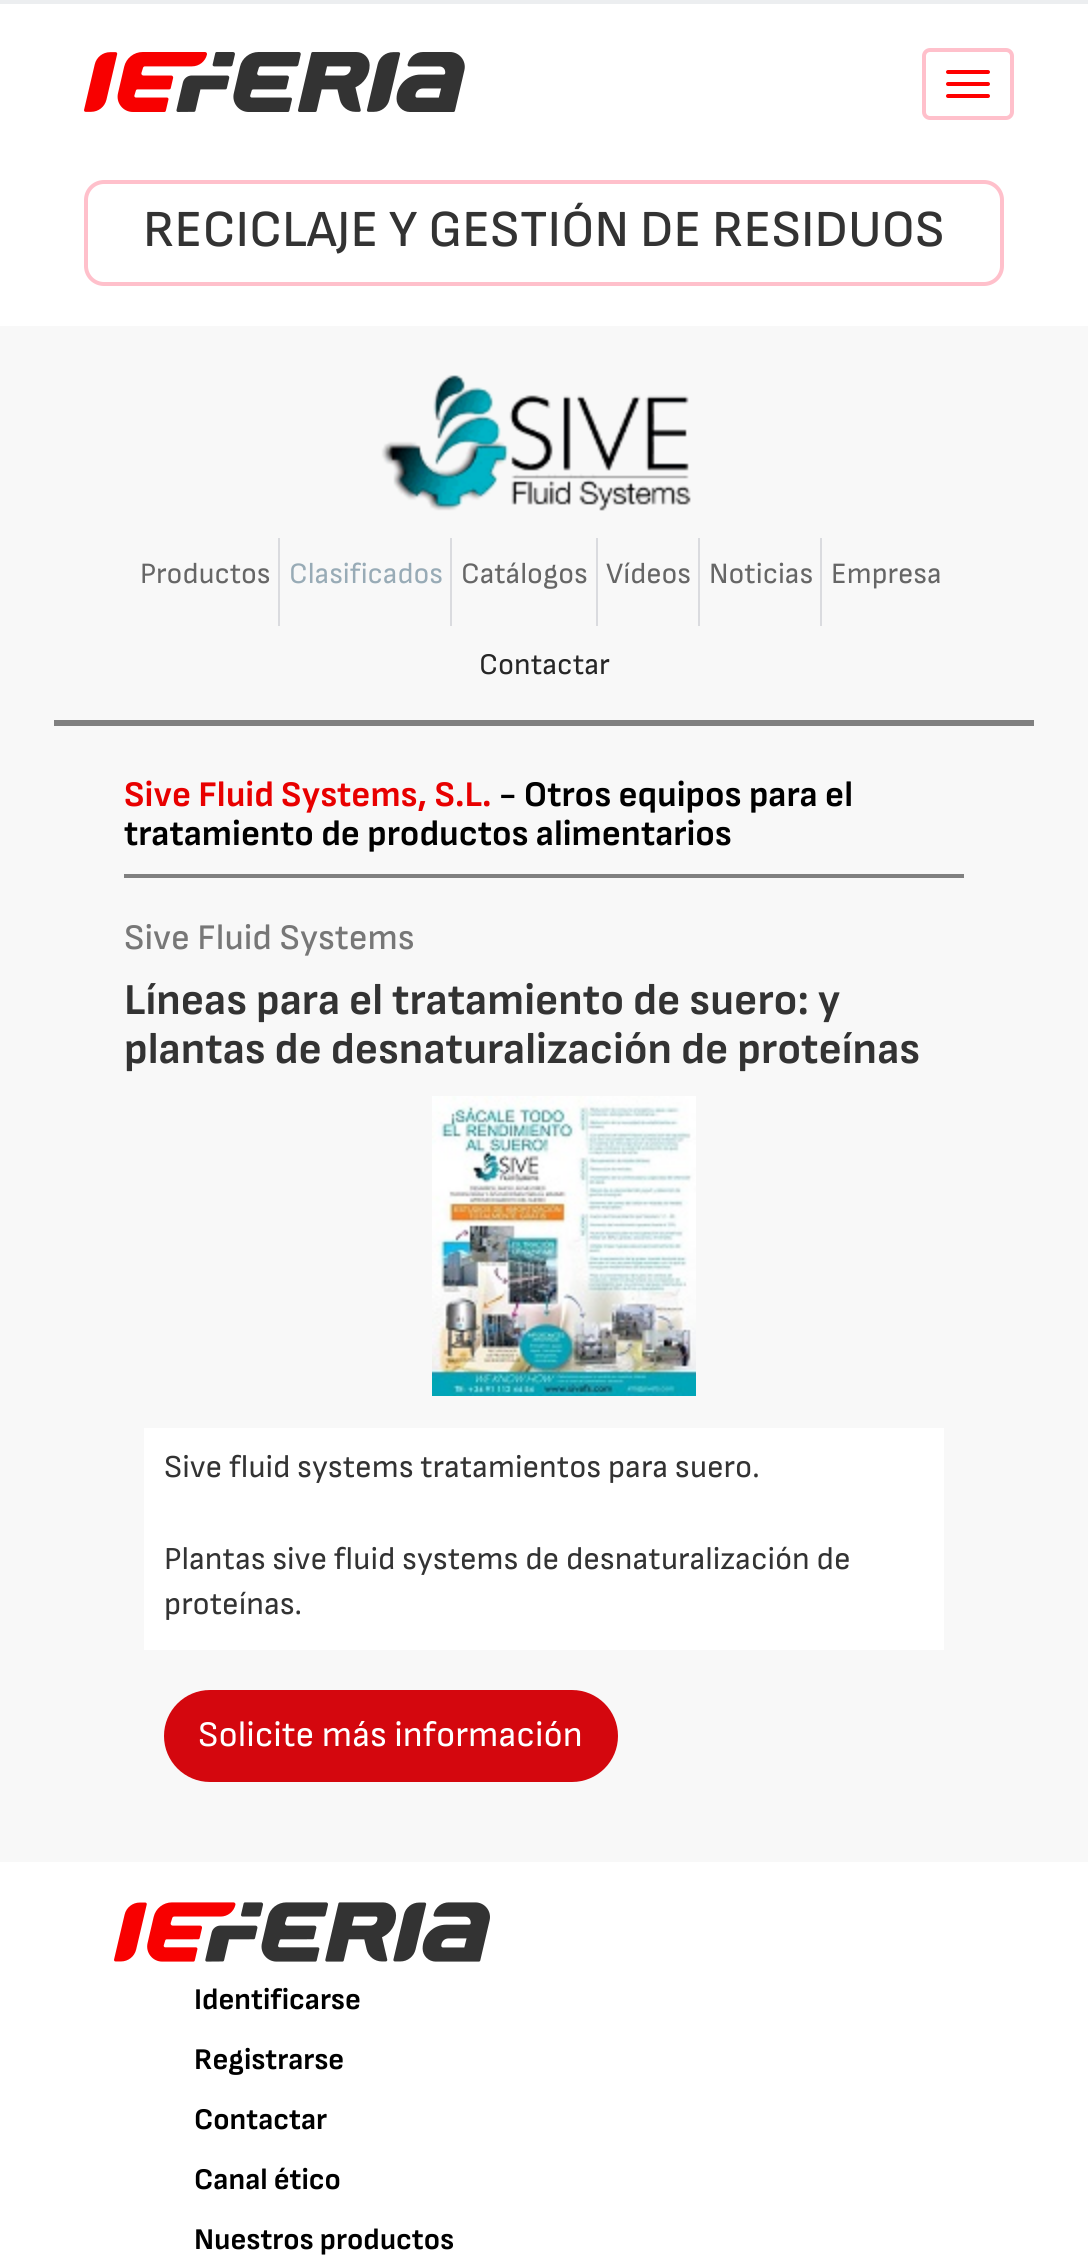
#include <cairo.h>
#include <math.h>
#include <stddef.h>

static cairo_t *ctx;

static void use_color(int r, int g, int b) {
    cairo_set_source_rgb(ctx, r / 255.0, g / 255.0, b / 255.0);
}

static void round_rect(double x, double y, double w, double h, double r) {
    cairo_new_sub_path(ctx);
    cairo_arc(ctx, x + w - r, y + h - r, r, 0, M_PI / 2);
    cairo_arc(ctx, x + r, y + h - r, r, M_PI / 2, M_PI);
    cairo_arc(ctx, x + r, y + r, r, M_PI, 1.5 * M_PI);
    cairo_arc(ctx, x + w - r, y + r, r, 1.5 * M_PI, 2 * M_PI);
    cairo_close_path(ctx);
}

static void picture(const char *path, double x, double y, double w, double h) {
    cairo_surface_t *image = cairo_image_surface_create_from_png(path);
    cairo_save(ctx);
    cairo_set_source_surface(ctx, image, x, y);
    cairo_rectangle(ctx, x, y, w, h);
    cairo_fill(ctx);
    cairo_restore(ctx);
    cairo_surface_destroy(image);
}

int main(void) {
    cairo_surface_t *surface = cairo_image_surface_create(CAIRO_FORMAT_RGB24, 1088, 2262);
    ctx = cairo_create(surface);
    cairo_font_options_t *options = cairo_font_options_create();
    cairo_font_options_set_hint_metrics(options, CAIRO_HINT_METRICS_OFF);
    cairo_font_options_set_hint_style(options, CAIRO_HINT_STYLE_NONE);
    cairo_set_font_options(ctx, options);
    cairo_set_miter_limit(ctx, 4);
    use_color(255, 255, 255);
    cairo_paint(ctx);
    use_color(236, 238, 240);
    cairo_rectangle(ctx, 0, 0, 1088, 4);
    cairo_fill(ctx);
    picture("img1.png", 84, 52, 381, 60);
    round_rect(924, 50, 88, 68, 6);
    use_color(255, 192, 203);
    cairo_set_line_width(ctx, 4);
    cairo_stroke(ctx);
    use_color(255, 0, 0);
    round_rect(946, 70, 44, 4, 2);
    cairo_fill(ctx);
    round_rect(946, 82, 44, 4, 2);
    cairo_fill(ctx);
    round_rect(946, 94, 44, 4, 2);
    cairo_fill(ctx);
    round_rect(86, 182, 916, 102, 18);
    use_color(255, 192, 203);
    cairo_stroke(ctx);
    cairo_select_font_face(ctx, "Sofia Sans Medium", CAIRO_FONT_SLANT_NORMAL, CAIRO_FONT_WEIGHT_NORMAL);
    cairo_set_font_size(ctx, 52);
    use_color(51, 51, 51);
    cairo_move_to(ctx, 143, 246);
    cairo_show_text(ctx, "RECICLAJE Y GESTIÓN DE RESIDUOS");
    use_color(248, 248, 248);
    cairo_rectangle(ctx, 0, 326, 1088, 1536);
    cairo_fill(ctx);
    use_color(128, 128, 128);
    cairo_rectangle(ctx, 54, 720, 980, 6);
    cairo_fill(ctx);
    picture("img2.png", 381, 374, 310, 137);
    cairo_select_font_face(ctx, "Sofia Sans", CAIRO_FONT_SLANT_NORMAL, CAIRO_FONT_WEIGHT_NORMAL);
    cairo_set_font_size(ctx, 29.5);
    use_color(102, 102, 102);
    cairo_move_to(ctx, 140, 583);
    cairo_show_text(ctx, "Productos");
    use_color(218, 219, 223);
    cairo_rectangle(ctx, 278, 538, 2, 88);
    cairo_fill(ctx);
    use_color(152, 171, 182);
    cairo_move_to(ctx, 289, 583);
    cairo_show_text(ctx, "Clasificados");
    use_color(218, 219, 223);
    cairo_rectangle(ctx, 450, 538, 2, 88);
    cairo_fill(ctx);
    use_color(102, 102, 102);
    cairo_move_to(ctx, 461, 583);
    cairo_show_text(ctx, "Catálogos");
    use_color(218, 219, 223);
    cairo_rectangle(ctx, 596, 538, 2, 88);
    cairo_fill(ctx);
    use_color(102, 102, 102);
    cairo_move_to(ctx, 606, 583);
    cairo_show_text(ctx, "Vídeos");
    use_color(218, 219, 223);
    cairo_rectangle(ctx, 698, 538, 2, 88);
    cairo_fill(ctx);
    use_color(102, 102, 102);
    cairo_move_to(ctx, 709, 583);
    cairo_show_text(ctx, "Noticias");
    use_color(218, 219, 223);
    cairo_rectangle(ctx, 820, 538, 2, 88);
    cairo_fill(ctx);
    use_color(102, 102, 102);
    cairo_move_to(ctx, 831, 583);
    cairo_show_text(ctx, "Empresa");
    cairo_set_font_size(ctx, 30);
    use_color(38, 38, 38);
    cairo_move_to(ctx, 479, 674);
    cairo_show_text(ctx, "Contactar");
    cairo_select_font_face(ctx, "Sofia Sans", CAIRO_FONT_SLANT_NORMAL, CAIRO_FONT_WEIGHT_BOLD);
    cairo_set_font_size(ctx, 36);
    use_color(232, 0, 0);
    cairo_move_to(ctx, 124, 806);
    cairo_show_text(ctx, "Sive Fluid Systems, S.L.");
    use_color(0, 0, 0);
    cairo_move_to(ctx, 499, 806);
    cairo_show_text(ctx, "- Otros equipos para el");
    cairo_move_to(ctx, 124, 845);
    cairo_show_text(ctx, "tratamiento de productos alimentarios");
    use_color(128, 128, 128);
    cairo_rectangle(ctx, 124, 874, 840, 4);
    cairo_fill(ctx);
    cairo_select_font_face(ctx, "Sofia Sans Medium", CAIRO_FONT_SLANT_NORMAL, CAIRO_FONT_WEIGHT_NORMAL);
    use_color(119, 119, 119);
    cairo_move_to(ctx, 124, 949);
    cairo_show_text(ctx, "Sive Fluid Systems");
    cairo_select_font_face(ctx, "Sofia Sans", CAIRO_FONT_SLANT_NORMAL, CAIRO_FONT_WEIGHT_BOLD);
    cairo_set_font_size(ctx, 44);
    use_color(51, 51, 51);
    cairo_move_to(ctx, 124, 1014);
    cairo_show_text(ctx, "Líneas para el tratamiento de suero: y");
    cairo_move_to(ctx, 124, 1063);
    cairo_show_text(ctx, "plantas de desnaturalización de proteínas");
    picture("img3.png", 432, 1096, 264, 300);
    use_color(255, 255, 255);
    cairo_rectangle(ctx, 144, 1428, 800, 222);
    cairo_fill(ctx);
    cairo_select_font_face(ctx, "Sofia Sans", CAIRO_FONT_SLANT_NORMAL, CAIRO_FONT_WEIGHT_NORMAL);
    cairo_set_font_size(ctx, 32);
    use_color(51, 51, 51);
    cairo_move_to(ctx, 164, 1477);
    cairo_show_text(ctx, "Sive fluid systems tratamientos para suero.");
    cairo_move_to(ctx, 164, 1569);
    cairo_show_text(ctx, "Plantas sive fluid systems de desnaturalización de");
    cairo_move_to(ctx, 164, 1614);
    cairo_show_text(ctx, "proteínas.");
    use_color(212, 7, 14);
    round_rect(164, 1690, 454, 92, 46);
    cairo_fill(ctx);
    cairo_set_font_size(ctx, 36);
    use_color(255, 255, 255);
    cairo_move_to(ctx, 198, 1746);
    cairo_show_text(ctx, "Solicite más información");
    picture("img4.png", 114, 1902, 376, 60);
    cairo_select_font_face(ctx, "Sofia Sans", CAIRO_FONT_SLANT_NORMAL, CAIRO_FONT_WEIGHT_BOLD);
    cairo_set_font_size(ctx, 30);
    use_color(0, 0, 0);
    cairo_move_to(ctx, 194, 2009);
    cairo_show_text(ctx, "Identificarse");
    cairo_move_to(ctx, 194, 2069);
    cairo_show_text(ctx, "Registrarse");
    cairo_move_to(ctx, 194, 2129);
    cairo_show_text(ctx, "Contactar");
    cairo_move_to(ctx, 194, 2189);
    cairo_show_text(ctx, "Canal ético");
    cairo_move_to(ctx, 194, 2249);
    cairo_show_text(ctx, "Nuestros productos");
    cairo_surface_write_to_png(surface, "result.png");
    cairo_font_options_destroy(options);
    cairo_destroy(ctx);
    cairo_surface_destroy(surface);
    return 0;
}
